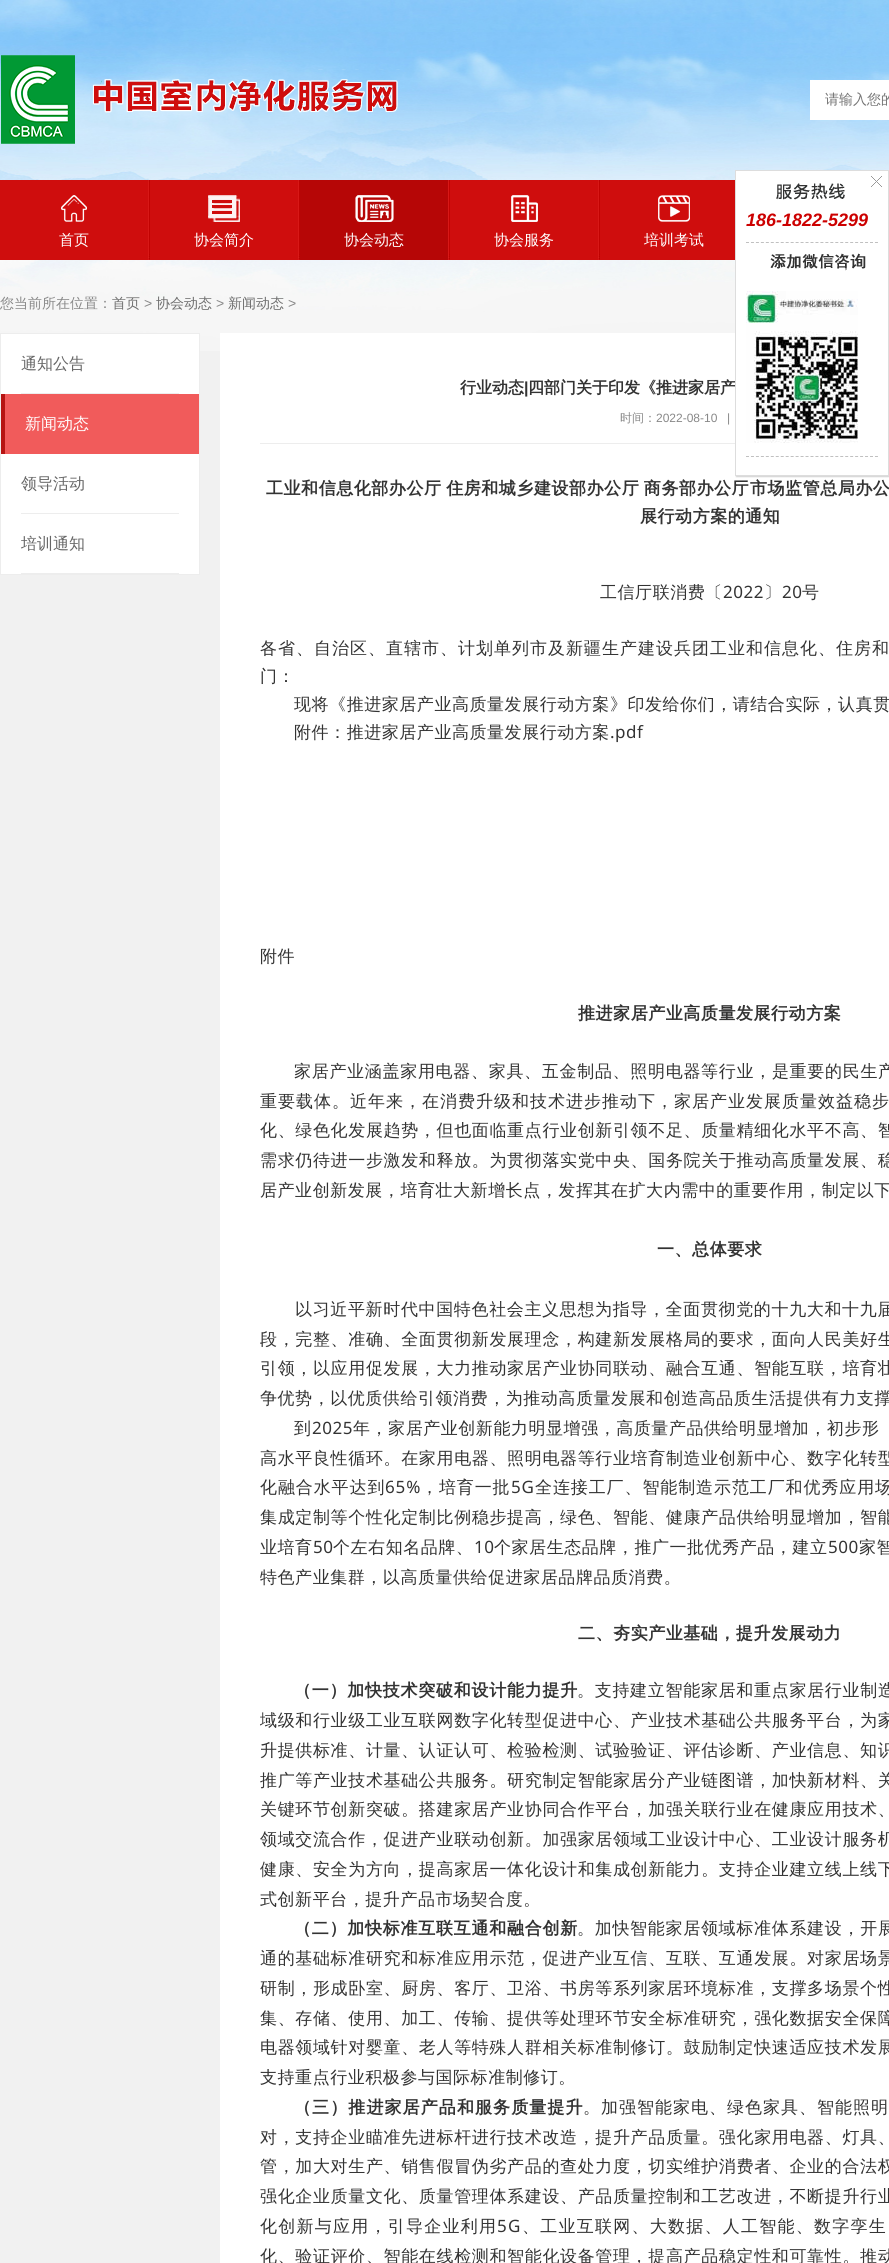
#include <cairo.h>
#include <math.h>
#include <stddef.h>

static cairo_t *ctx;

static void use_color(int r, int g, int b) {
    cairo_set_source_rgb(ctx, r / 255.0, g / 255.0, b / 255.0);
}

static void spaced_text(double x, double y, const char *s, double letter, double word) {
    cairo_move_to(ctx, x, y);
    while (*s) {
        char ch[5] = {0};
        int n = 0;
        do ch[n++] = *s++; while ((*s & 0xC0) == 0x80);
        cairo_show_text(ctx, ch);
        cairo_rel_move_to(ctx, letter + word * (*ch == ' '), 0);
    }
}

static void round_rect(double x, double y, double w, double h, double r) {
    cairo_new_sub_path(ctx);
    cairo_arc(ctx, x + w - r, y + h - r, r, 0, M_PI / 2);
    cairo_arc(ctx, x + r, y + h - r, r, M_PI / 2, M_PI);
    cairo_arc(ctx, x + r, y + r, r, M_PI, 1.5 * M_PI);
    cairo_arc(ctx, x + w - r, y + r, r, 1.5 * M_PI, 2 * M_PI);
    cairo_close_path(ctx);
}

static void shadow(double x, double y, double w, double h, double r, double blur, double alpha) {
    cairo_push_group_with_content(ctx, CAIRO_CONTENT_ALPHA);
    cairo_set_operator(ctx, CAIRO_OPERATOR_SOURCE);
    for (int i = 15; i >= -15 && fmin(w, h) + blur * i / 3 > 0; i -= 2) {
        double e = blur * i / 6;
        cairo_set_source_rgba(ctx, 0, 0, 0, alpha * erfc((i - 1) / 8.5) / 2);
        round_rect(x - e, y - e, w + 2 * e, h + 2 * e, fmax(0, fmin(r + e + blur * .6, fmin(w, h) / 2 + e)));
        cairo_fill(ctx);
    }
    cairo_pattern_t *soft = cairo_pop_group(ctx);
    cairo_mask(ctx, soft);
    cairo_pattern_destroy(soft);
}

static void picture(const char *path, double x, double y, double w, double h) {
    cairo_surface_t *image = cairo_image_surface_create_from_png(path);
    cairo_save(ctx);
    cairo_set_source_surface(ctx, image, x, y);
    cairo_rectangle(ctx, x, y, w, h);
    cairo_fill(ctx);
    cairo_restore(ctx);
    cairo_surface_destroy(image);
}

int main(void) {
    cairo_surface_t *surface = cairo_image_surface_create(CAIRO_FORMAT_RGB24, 889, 2263);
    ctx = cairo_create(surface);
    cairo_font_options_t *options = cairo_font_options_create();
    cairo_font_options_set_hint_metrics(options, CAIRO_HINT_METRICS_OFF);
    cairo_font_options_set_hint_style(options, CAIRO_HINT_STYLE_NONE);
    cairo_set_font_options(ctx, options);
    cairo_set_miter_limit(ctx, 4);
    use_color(241, 241, 241);
    cairo_paint(ctx);
    picture("img1.png", 0, 0, 889, 351);
    picture("img2.png", 1, 55, 399, 89);
    use_color(255, 255, 255);
    cairo_rectangle(ctx, 810, 80, 79, 40);
    cairo_fill(ctx);
    cairo_select_font_face(ctx, "WenQuanYi Zen Hei Medium", CAIRO_FONT_SLANT_NORMAL, CAIRO_FONT_WEIGHT_NORMAL);
    cairo_set_font_size(ctx, 14);
    use_color(117, 117, 117);
    cairo_move_to(ctx, 825, 104);
    cairo_show_text(ctx, "请输入您的");
    use_color(207, 13, 13);
    cairo_rectangle(ctx, 0, 180, 735, 80);
    cairo_fill(ctx);
    use_color(255, 255, 255);
    cairo_rectangle(ctx, 220, 333, 669, 1930);
    cairo_fill(ctx);
    use_color(237, 237, 237);
    cairo_rectangle(ctx, 260, 443, 475, 1);
    cairo_fill(ctx);
    use_color(212, 212, 212);
    shadow(736, 171, 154, 306, 0, 0.5, 1);
    cairo_select_font_face(ctx, "WenQuanYi Zen Hei", CAIRO_FONT_SLANT_NORMAL, CAIRO_FONT_WEIGHT_BOLD);
    cairo_set_font_size(ctx, 16);
    use_color(51, 51, 51);
    cairo_move_to(ctx, 528, 393);
    cairo_show_text(ctx, "四部门关于印发《推进家居产");
    use_color(255, 255, 255);
    cairo_rectangle(ctx, 735.5, 170.5, 153, 305);
    cairo_fill_preserve(ctx);
    use_color(221, 221, 221);
    cairo_set_line_width(ctx, 1);
    cairo_stroke(ctx);
    picture("img3.png", 871, 176, 11, 11);
    picture("img4.png", 776, 183, 69, 17);
    cairo_select_font_face(ctx, "Liberation Sans", CAIRO_FONT_SLANT_ITALIC, CAIRO_FONT_WEIGHT_BOLD);
    cairo_set_font_size(ctx, 18);
    use_color(204, 0, 0);
    cairo_move_to(ctx, 746, 226);
    cairo_show_text(ctx, "186-1822-5299");
    cairo_new_path(ctx);
    cairo_move_to(ctx, 746, 242.5);
    cairo_line_to(ctx, 878, 242.5);
    use_color(192, 192, 192);
    cairo_set_dash(ctx, (double[]){3, 1.96}, 2, 0);
    cairo_stroke(ctx);
    picture("img5.png", 770, 253, 96, 18);
    picture("img6.png", 746, 291, 112, 152);
    cairo_new_path(ctx);
    cairo_move_to(ctx, 746, 456.5);
    cairo_line_to(ctx, 878, 456.5);
    cairo_stroke(ctx);
    picture("img7.png", 148, 180, 2, 80);
    picture("img8.png", 61, 195, 26, 27);
    cairo_select_font_face(ctx, "WenQuanYi Zen Hei Medium", CAIRO_FONT_SLANT_NORMAL, CAIRO_FONT_WEIGHT_NORMAL);
    cairo_set_font_size(ctx, 15);
    use_color(255, 255, 255);
    cairo_move_to(ctx, 59, 245);
    cairo_show_text(ctx, "首页");
    picture("img7.png", 298, 180, 2, 80);
    picture("img9.png", 208, 195, 32, 27);
    cairo_move_to(ctx, 194, 245);
    cairo_show_text(ctx, "协会简介");
    picture("img7.png", 448, 180, 2, 80);
    use_color(182, 6, 6);
    cairo_rectangle(ctx, 300, 180, 148, 80);
    cairo_fill(ctx);
    picture("img10.png", 355, 195, 39, 27);
    use_color(255, 255, 255);
    cairo_move_to(ctx, 344, 245);
    cairo_show_text(ctx, "协会动态");
    picture("img7.png", 598, 180, 2, 80);
    picture("img11.png", 511, 195, 27, 27);
    cairo_move_to(ctx, 494, 245);
    cairo_show_text(ctx, "协会服务");
    picture("img12.png", 658, 195, 32, 27);
    cairo_move_to(ctx, 644, 245);
    cairo_show_text(ctx, "培训考试");
    cairo_set_font_size(ctx, 14);
    use_color(136, 136, 136);
    cairo_move_to(ctx, 0, 308);
    cairo_show_text(ctx, "您当前所在位置：");
    use_color(110, 110, 110);
    cairo_move_to(ctx, 112, 308);
    cairo_show_text(ctx, "首页");
    cairo_select_font_face(ctx, "Liberation Sans", CAIRO_FONT_SLANT_NORMAL, CAIRO_FONT_WEIGHT_NORMAL);
    use_color(136, 136, 136);
    cairo_move_to(ctx, 144, 308);
    cairo_show_text(ctx, ">");
    cairo_select_font_face(ctx, "WenQuanYi Zen Hei Medium", CAIRO_FONT_SLANT_NORMAL, CAIRO_FONT_WEIGHT_NORMAL);
    use_color(110, 110, 110);
    cairo_move_to(ctx, 156, 308);
    cairo_show_text(ctx, "协会动态");
    cairo_select_font_face(ctx, "Liberation Sans", CAIRO_FONT_SLANT_NORMAL, CAIRO_FONT_WEIGHT_NORMAL);
    use_color(136, 136, 136);
    cairo_move_to(ctx, 216, 308);
    cairo_show_text(ctx, ">");
    cairo_select_font_face(ctx, "WenQuanYi Zen Hei Medium", CAIRO_FONT_SLANT_NORMAL, CAIRO_FONT_WEIGHT_NORMAL);
    use_color(110, 110, 110);
    cairo_move_to(ctx, 228, 308);
    cairo_show_text(ctx, "新闻动态");
    cairo_select_font_face(ctx, "Liberation Sans", CAIRO_FONT_SLANT_NORMAL, CAIRO_FONT_WEIGHT_NORMAL);
    use_color(136, 136, 136);
    cairo_move_to(ctx, 288, 308);
    cairo_show_text(ctx, ">");
    cairo_rectangle(ctx, 0.5, 333.5, 199, 241);
    use_color(237, 237, 237);
    cairo_set_dash(ctx, NULL, 0, 0);
    cairo_stroke(ctx);
    use_color(255, 255, 255);
    cairo_rectangle(ctx, 1, 334, 198, 60);
    cairo_fill(ctx);
    use_color(237, 237, 237);
    cairo_rectangle(ctx, 21, 393, 158, 1);
    cairo_fill(ctx);
    cairo_select_font_face(ctx, "WenQuanYi Zen Hei Medium", CAIRO_FONT_SLANT_NORMAL, CAIRO_FONT_WEIGHT_NORMAL);
    cairo_set_font_size(ctx, 16);
    use_color(102, 102, 102);
    cairo_move_to(ctx, 21, 369);
    cairo_show_text(ctx, "通知公告");
    use_color(241, 91, 91);
    cairo_rectangle(ctx, 5, 394, 194, 60);
    cairo_fill(ctx);
    use_color(182, 20, 18);
    cairo_rectangle(ctx, 1, 394, 4, 60);
    cairo_fill(ctx);
    use_color(255, 255, 255);
    cairo_move_to(ctx, 25, 429);
    cairo_show_text(ctx, "新闻动态");
    cairo_rectangle(ctx, 1, 454, 198, 120);
    cairo_fill(ctx);
    use_color(237, 237, 237);
    cairo_rectangle(ctx, 21, 513, 158, 1);
    cairo_fill(ctx);
    use_color(102, 102, 102);
    cairo_move_to(ctx, 21, 489);
    cairo_show_text(ctx, "领导活动");
    use_color(237, 237, 237);
    cairo_rectangle(ctx, 21, 573, 158, 1);
    cairo_fill(ctx);
    use_color(102, 102, 102);
    cairo_move_to(ctx, 21, 549);
    cairo_show_text(ctx, "培训通知");
    cairo_select_font_face(ctx, "WenQuanYi Zen Hei", CAIRO_FONT_SLANT_NORMAL, CAIRO_FONT_WEIGHT_BOLD);
    use_color(51, 51, 51);
    cairo_move_to(ctx, 460, 393);
    cairo_show_text(ctx, "行业动态");
    cairo_select_font_face(ctx, "Liberation Sans", CAIRO_FONT_SLANT_NORMAL, CAIRO_FONT_WEIGHT_BOLD);
    cairo_move_to(ctx, 524, 393);
    cairo_show_text(ctx, "|");
    cairo_select_font_face(ctx, "WenQuanYi Zen Hei Medium", CAIRO_FONT_SLANT_NORMAL, CAIRO_FONT_WEIGHT_NORMAL);
    cairo_set_font_size(ctx, 12);
    use_color(136, 136, 136);
    cairo_move_to(ctx, 620, 422);
    cairo_show_text(ctx, "时间：");
    cairo_select_font_face(ctx, "Liberation Sans", CAIRO_FONT_SLANT_NORMAL, CAIRO_FONT_WEIGHT_NORMAL);
    cairo_move_to(ctx, 656, 422);
    cairo_show_text(ctx, "2022-08-10");
    cairo_move_to(ctx, 727, 422);
    cairo_show_text(ctx, "|");
    cairo_select_font_face(ctx, "WenQuanYi Zen Hei", CAIRO_FONT_SLANT_NORMAL, CAIRO_FONT_WEIGHT_BOLD);
    cairo_set_font_size(ctx, 17);
    use_color(51, 51, 51);
    spaced_text(266, 494, "工业和信息化部办公厅 住房和城乡建设部办公厅 商务部办公厅", 0.55, -1);
    spaced_text(750, 494, "市场监管总局办公", 0.55, 0);
    spaced_text(640, 522, "展行动方案的通知", 0.55, 0);
    cairo_select_font_face(ctx, "WenQuanYi Zen Hei Medium", CAIRO_FONT_SLANT_NORMAL, CAIRO_FONT_WEIGHT_NORMAL);
    spaced_text(600, 598, "工信厅联消费〔", 0.55, 0);
    cairo_select_font_face(ctx, "Noto Sans", CAIRO_FONT_SLANT_NORMAL, CAIRO_FONT_WEIGHT_NORMAL);
    spaced_text(723, 598, "2022", 0.55, 0);
    cairo_select_font_face(ctx, "WenQuanYi Zen Hei Medium", CAIRO_FONT_SLANT_NORMAL, CAIRO_FONT_WEIGHT_NORMAL);
    spaced_text(764, 598, "〕", 0.55, 0);
    cairo_select_font_face(ctx, "Noto Sans", CAIRO_FONT_SLANT_NORMAL, CAIRO_FONT_WEIGHT_NORMAL);
    spaced_text(782, 598, "20", 0.55, 0);
    cairo_select_font_face(ctx, "WenQuanYi Zen Hei Medium", CAIRO_FONT_SLANT_NORMAL, CAIRO_FONT_WEIGHT_NORMAL);
    spaced_text(802, 598, "号", 0.55, 0);
    spaced_text(260, 654, "各省、自治区、直辖市、计划单列市及新疆生产建设兵团工业和信息化、住房和", 1, 0);
    spaced_text(260, 682, "门：", 0.55, 0);
    spaced_text(294, 710, "现将《推进家居产业高质量发展行动方案》印发给你们，请结合实际，认真贯", 0.55, 0);
    spaced_text(294, 738, "附件：推进家居产业高质量发展行动方案", 0.55, 0);
    cairo_select_font_face(ctx, "Noto Sans", CAIRO_FONT_SLANT_NORMAL, CAIRO_FONT_WEIGHT_NORMAL);
    spaced_text(610, 738, ".pdf", 0.55, 0);
    cairo_select_font_face(ctx, "WenQuanYi Zen Hei Medium", CAIRO_FONT_SLANT_NORMAL, CAIRO_FONT_WEIGHT_NORMAL);
    spaced_text(260, 962, "附件", 0.55, 0);
    cairo_select_font_face(ctx, "WenQuanYi Zen Hei", CAIRO_FONT_SLANT_NORMAL, CAIRO_FONT_WEIGHT_BOLD);
    spaced_text(578, 1019, "推进家居产业高质量发展行动方案", 0.55, 0);
    cairo_select_font_face(ctx, "WenQuanYi Zen Hei Medium", CAIRO_FONT_SLANT_NORMAL, CAIRO_FONT_WEIGHT_NORMAL);
    spaced_text(294, 1077, "家居产业涵盖家用电器、家具、五金制品、照明电器等行业，是重要的民生产", 0.7, 0);
    spaced_text(260, 1107, "重要载体。近年来，在消费升级和技术进步推动下，家居产业发展质量效益稳步", 1, 0);
    spaced_text(260, 1136, "化、绿色化发展趋势，但也面临重点行业创新引领不足、质量精细化水平不高、智", 0.65, 0);
    spaced_text(260, 1166, "需求仍待进一步激发和释放。为贯彻落实党中央、国务院关于推动高质量发展、稳", 0.65, 0);
    spaced_text(260, 1196, "居产业创新发展，培育壮大新增长点，发挥其在扩大内需中的重要作用，制定以下", 0.55, 0);
    cairo_select_font_face(ctx, "WenQuanYi Zen Hei", CAIRO_FONT_SLANT_NORMAL, CAIRO_FONT_WEIGHT_BOLD);
    spaced_text(657, 1255, "一、总体要求", 0.55, 0);
    cairo_select_font_face(ctx, "WenQuanYi Zen Hei Medium", CAIRO_FONT_SLANT_NORMAL, CAIRO_FONT_WEIGHT_NORMAL);
    spaced_text(295, 1315, "以习近平新时代中国特色社会主义思想为指导，全面贯彻党的十九大和十九届", 0.65, 0);
    spaced_text(260, 1345, "段，完整、准确、全面贯彻新发展理念，构建新发展格局的要求，面向人民美好生", 0.65, 0);
    spaced_text(260, 1374, "引领，以应用促发展，大力推动家居产业协同联动、融合互通、智能互联，培育壮", 0.65, 0);
    spaced_text(260, 1404, "争优势，以优质供给引领消费，为推动高质量发展和创造高品质生活提供有力支撑", 0.55, 0);
    spaced_text(294, 1434, "到", 0.55, 0);
    cairo_select_font_face(ctx, "Noto Sans", CAIRO_FONT_SLANT_NORMAL, CAIRO_FONT_WEIGHT_NORMAL);
    spaced_text(312, 1434, "2025", 0.55, 0);
    cairo_select_font_face(ctx, "WenQuanYi Zen Hei Medium", CAIRO_FONT_SLANT_NORMAL, CAIRO_FONT_WEIGHT_NORMAL);
    spaced_text(353, 1434, "年，家居产业创新能力明显增强，高质量产品供给明显增加，初步形", 0.55, 0);
    spaced_text(260, 1464, "高水平良性循环。在家用电器、照明电器等行业培育制造业创新中心、数字化转型", 0.65, 0);
    spaced_text(260, 1493, "化融合水平达到", 0.9, 0);
    cairo_select_font_face(ctx, "Noto Sans", CAIRO_FONT_SLANT_NORMAL, CAIRO_FONT_WEIGHT_NORMAL);
    spaced_text(385, 1493, "65%", 0.9, 0);
    cairo_select_font_face(ctx, "WenQuanYi Zen Hei Medium", CAIRO_FONT_SLANT_NORMAL, CAIRO_FONT_WEIGHT_NORMAL);
    spaced_text(421, 1493, "，培育一批", 0.9, 0);
    cairo_select_font_face(ctx, "Noto Sans", CAIRO_FONT_SLANT_NORMAL, CAIRO_FONT_WEIGHT_NORMAL);
    spaced_text(511, 1493, "5G", 0.9, 0);
    cairo_select_font_face(ctx, "WenQuanYi Zen Hei Medium", CAIRO_FONT_SLANT_NORMAL, CAIRO_FONT_WEIGHT_NORMAL);
    spaced_text(535, 1493, "全连接工厂、智能制造示范工厂和优秀应用场", 0.9, 0);
    spaced_text(260, 1523, "集成定制等个性化定制比例稳步提高，绿色、智能、健康产品供给明显增加，智能", 0.65, 0);
    spaced_text(260, 1553, "业培育", 0.55, 0);
    cairo_select_font_face(ctx, "Noto Sans", CAIRO_FONT_SLANT_NORMAL, CAIRO_FONT_WEIGHT_NORMAL);
    spaced_text(313, 1553, "50", 0.55, 0);
    cairo_select_font_face(ctx, "WenQuanYi Zen Hei Medium", CAIRO_FONT_SLANT_NORMAL, CAIRO_FONT_WEIGHT_NORMAL);
    spaced_text(333, 1553, "个左右知名品牌、", 0.55, 0);
    cairo_select_font_face(ctx, "Noto Sans", CAIRO_FONT_SLANT_NORMAL, CAIRO_FONT_WEIGHT_NORMAL);
    spaced_text(474, 1553, "10", 0.55, 0);
    cairo_select_font_face(ctx, "WenQuanYi Zen Hei Medium", CAIRO_FONT_SLANT_NORMAL, CAIRO_FONT_WEIGHT_NORMAL);
    spaced_text(494, 1553, "个家居生态品牌，推广一批优秀产品，建立", 0.55, 0);
    cairo_select_font_face(ctx, "Noto Sans", CAIRO_FONT_SLANT_NORMAL, CAIRO_FONT_WEIGHT_NORMAL);
    spaced_text(828, 1553, "500", 0.55, 0);
    cairo_select_font_face(ctx, "WenQuanYi Zen Hei Medium", CAIRO_FONT_SLANT_NORMAL, CAIRO_FONT_WEIGHT_NORMAL);
    spaced_text(859, 1553, "家智", 0.55, 0);
    spaced_text(260, 1583, "特色产业集群，以高质量供给促进家居品牌品质消费。", 0.55, 0);
    cairo_select_font_face(ctx, "WenQuanYi Zen Hei", CAIRO_FONT_SLANT_NORMAL, CAIRO_FONT_WEIGHT_BOLD);
    spaced_text(578, 1639, "二、夯实产业基础，提升发展动力", 0.55, 0);
    spaced_text(294, 1696, "（一）加快技术突破和设计能力提升", 0.75, 0);
    cairo_select_font_face(ctx, "WenQuanYi Zen Hei Medium", CAIRO_FONT_SLANT_NORMAL, CAIRO_FONT_WEIGHT_NORMAL);
    spaced_text(577, 1696, "。支持建立智能家居和重点家居行业制造", 0.7, 0);
    spaced_text(260, 1726, "域级和行业级工业互联网数字化转型促进中心、产业技术基础公共服务平台，为家", 0.65, 0);
    spaced_text(260, 1756, "升提供标准、计量、认证认可、检验检测、试验验证、评估诊断、产业信息、知识", 0.65, 0);
    spaced_text(260, 1786, "推广等产业技术基础公共服务。研究制定智能家居分产业链图谱，加快新材料、关", 0.65, 0);
    spaced_text(260, 1815, "关键环节创新突破。搭建家居产业协同合作平台，加强关联行业在健康应用技术、", 0.65, 0);
    spaced_text(260, 1845, "领域交流合作，促进产业联动创新。加强家居领域工业设计中心、工业设计服务机", 0.65, 0);
    spaced_text(260, 1875, "健康、安全为方向，提高家居一体化设计和集成创新能力。支持企业建立线上线下", 0.65, 0);
    spaced_text(260, 1905, "式创新平台，提升产品市场契合度。", 0.55, 0);
    cairo_select_font_face(ctx, "WenQuanYi Zen Hei", CAIRO_FONT_SLANT_NORMAL, CAIRO_FONT_WEIGHT_BOLD);
    spaced_text(294, 1934, "（二）加快标准互联互通和融合创新", 0.75, 0);
    cairo_select_font_face(ctx, "WenQuanYi Zen Hei Medium", CAIRO_FONT_SLANT_NORMAL, CAIRO_FONT_WEIGHT_NORMAL);
    spaced_text(577, 1934, "。加快智能家居领域标准体系建设，开展", 0.7, 0);
    spaced_text(260, 1964, "通的基础标准研究和标准应用示范，促进产业互信、互联、互通发展。对家居场景", 0.65, 0);
    spaced_text(260, 1994, "研制，形成卧室、厨房、客厅、卫浴、书房等系列家居环境标准，支撑多场景个性", 0.65, 0);
    spaced_text(260, 2024, "集、存储、使用、加工、传输、提供等处理环节安全标准研究，强化数据安全保障", 0.65, 0);
    spaced_text(260, 2053, "电器领域针对婴童、老人等特殊人群相关标准制修订。鼓励制定快速适应技术发展", 0.65, 0);
    spaced_text(260, 2083, "支持重点行业积极参与国际标准制修订。", 0.55, 0);
    cairo_select_font_face(ctx, "WenQuanYi Zen Hei", CAIRO_FONT_SLANT_NORMAL, CAIRO_FONT_WEIGHT_BOLD);
    spaced_text(294, 2113, "（三）推进家居产品和服务质量提升", 1.1, 0);
    cairo_select_font_face(ctx, "WenQuanYi Zen Hei Medium", CAIRO_FONT_SLANT_NORMAL, CAIRO_FONT_WEIGHT_NORMAL);
    spaced_text(583, 2113, "。加强智能家电、绿色家具、智能照明", 1, 0);
    spaced_text(260, 2143, "对，支持企业瞄准先进标杆进行技术改造，提升产品质量。强化家用电器、灯具、", 0.65, 0);
    spaced_text(260, 2172, "管，加大对生产、销售假冒伪劣产品的查处力度，切实维护消费者、企业的合法权", 0.65, 0);
    spaced_text(260, 2202, "强化企业质量文化、质量管理体系建设、产品质量控制和工艺改进，不断提升行业", 0.65, 0);
    spaced_text(260, 2232, "化创新与应用，引导企业利用", 1.25, 0);
    cairo_select_font_face(ctx, "Noto Sans", CAIRO_FONT_SLANT_NORMAL, CAIRO_FONT_WEIGHT_NORMAL);
    spaced_text(497, 2232, "5G", 1.25, 0);
    cairo_select_font_face(ctx, "WenQuanYi Zen Hei Medium", CAIRO_FONT_SLANT_NORMAL, CAIRO_FONT_WEIGHT_NORMAL);
    spaced_text(522, 2232, "、工业互联网、大数据、人工智能、数字孪生", 1.25, 0);
    spaced_text(260, 2262, "化、验证评价、智能在线检测和智能化设备管理，提高产品稳定性和可靠性。推动", 0.65, 0);
    cairo_surface_write_to_png(surface, "result.png");
    cairo_font_options_destroy(options);
    cairo_destroy(ctx);
    cairo_surface_destroy(surface);
    return 0;
}
